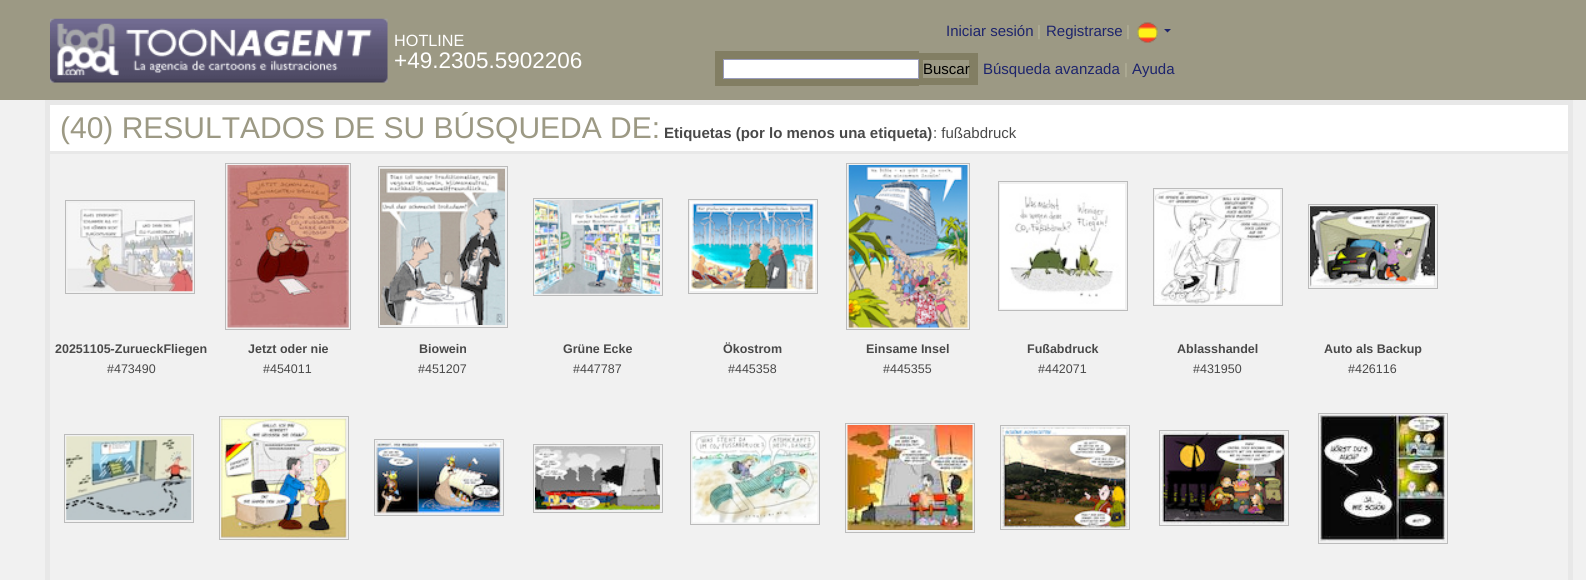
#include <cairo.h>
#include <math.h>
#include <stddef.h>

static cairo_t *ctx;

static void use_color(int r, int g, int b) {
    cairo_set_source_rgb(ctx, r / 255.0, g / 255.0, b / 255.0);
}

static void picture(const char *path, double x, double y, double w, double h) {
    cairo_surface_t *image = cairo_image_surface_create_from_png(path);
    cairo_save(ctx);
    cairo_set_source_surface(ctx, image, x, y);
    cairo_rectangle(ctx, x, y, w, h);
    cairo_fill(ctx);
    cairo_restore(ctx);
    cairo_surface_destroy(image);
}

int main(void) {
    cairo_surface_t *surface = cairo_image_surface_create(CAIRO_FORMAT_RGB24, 1586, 580);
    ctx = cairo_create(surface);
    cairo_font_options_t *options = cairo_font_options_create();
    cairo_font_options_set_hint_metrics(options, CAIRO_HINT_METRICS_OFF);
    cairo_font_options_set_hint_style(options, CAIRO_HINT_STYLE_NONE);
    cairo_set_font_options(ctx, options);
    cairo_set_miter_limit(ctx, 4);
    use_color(241, 241, 241);
    cairo_paint(ctx);
    use_color(156, 153, 132);
    cairo_rectangle(ctx, 0, 0, 1586, 100);
    cairo_fill(ctx);
    cairo_select_font_face(ctx, "Liberation Sans", CAIRO_FONT_SLANT_NORMAL, CAIRO_FONT_WEIGHT_NORMAL);
    cairo_set_font_size(ctx, 15);
    use_color(29, 36, 108);
    cairo_move_to(ctx, 946, 36);
    cairo_show_text(ctx, "Iniciar sesión");
    use_color(181, 178, 155);
    cairo_move_to(ctx, 1037, 36);
    cairo_show_text(ctx, "|");
    use_color(29, 36, 108);
    cairo_move_to(ctx, 1046, 36);
    cairo_show_text(ctx, "Registrarse");
    use_color(181, 178, 155);
    cairo_move_to(ctx, 1126, 36);
    cairo_show_text(ctx, "|");
    picture("img1.png", 1137, 22, 21, 21);
    use_color(29, 36, 108);
    cairo_new_path(ctx);
    cairo_move_to(ctx, 1164, 29);
    cairo_line_to(ctx, 1171, 29);
    cairo_line_to(ctx, 1167.5, 32.5);
    cairo_close_path(ctx);
    cairo_fill(ctx);
    picture("img2.png", 50, 18, 338, 65);
    cairo_set_font_size(ctx, 16.25);
    use_color(255, 255, 255);
    cairo_move_to(ctx, 394, 46);
    cairo_show_text(ctx, "HOTLINE");
    cairo_set_font_size(ctx, 22.5);
    cairo_move_to(ctx, 394, 68);
    cairo_show_text(ctx, "+49.2305.5902206");
    use_color(130, 126, 99);
    cairo_rectangle(ctx, 715, 51, 204, 35);
    cairo_fill(ctx);
    cairo_rectangle(ctx, 919, 53, 59, 32);
    cairo_fill(ctx);
    use_color(255, 255, 255);
    cairo_rectangle(ctx, 723.5, 59.5, 195, 19);
    cairo_fill_preserve(ctx);
    use_color(153, 156, 187);
    cairo_set_line_width(ctx, 1);
    cairo_stroke(ctx);
    use_color(156, 153, 132);
    cairo_rectangle(ctx, 923, 60, 46, 18);
    cairo_fill(ctx);
    cairo_set_font_size(ctx, 15);
    use_color(0, 0, 0);
    cairo_move_to(ctx, 923, 74);
    cairo_show_text(ctx, "Buscar");
    use_color(29, 36, 108);
    cairo_move_to(ctx, 983, 74);
    cairo_show_text(ctx, "Búsqueda avanzada");
    use_color(181, 178, 155);
    cairo_move_to(ctx, 1124, 74);
    cairo_show_text(ctx, "|");
    use_color(29, 36, 108);
    cairo_move_to(ctx, 1132, 74);
    cairo_show_text(ctx, "Ayuda");
    cairo_rectangle(ctx, 47.5, 102.5, 1523, 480);
    use_color(232, 232, 232);
    cairo_set_line_width(ctx, 5);
    cairo_stroke(ctx);
    use_color(255, 255, 255);
    cairo_rectangle(ctx, 50, 105, 1518, 46);
    cairo_fill(ctx);
    cairo_set_font_size(ctx, 30);
    use_color(156, 153, 132);
    cairo_move_to(ctx, 60, 138);
    cairo_show_text(ctx, "(40) RESULTADOS DE SU BÚSQUEDA DE:");
    cairo_select_font_face(ctx, "Liberation Sans", CAIRO_FONT_SLANT_NORMAL, CAIRO_FONT_WEIGHT_BOLD);
    cairo_set_font_size(ctx, 15);
    use_color(73, 73, 73);
    cairo_move_to(ctx, 664, 138);
    cairo_show_text(ctx, "Etiquetas (por lo menos una etiqueta)");
    cairo_select_font_face(ctx, "Liberation Sans", CAIRO_FONT_SLANT_NORMAL, CAIRO_FONT_WEIGHT_NORMAL);
    cairo_move_to(ctx, 933, 138);
    cairo_show_text(ctx, ": fußabdruck");
    use_color(232, 232, 232);
    cairo_rectangle(ctx, 50, 151, 1518, 3);
    cairo_fill(ctx);
    cairo_rectangle(ctx, 65.5, 200.5, 129, 93);
    use_color(187, 187, 187);
    cairo_set_line_width(ctx, 1);
    cairo_stroke(ctx);
    picture("img3.png", 67, 203, 126, 89);
    cairo_select_font_face(ctx, "Liberation Sans", CAIRO_FONT_SLANT_NORMAL, CAIRO_FONT_WEIGHT_BOLD);
    cairo_set_font_size(ctx, 12.5);
    use_color(73, 73, 73);
    cairo_move_to(ctx, 55, 353);
    cairo_show_text(ctx, "20251105-ZurueckFliegen");
    cairo_select_font_face(ctx, "Liberation Sans", CAIRO_FONT_SLANT_NORMAL, CAIRO_FONT_WEIGHT_NORMAL);
    cairo_move_to(ctx, 107, 373);
    cairo_show_text(ctx, "#473490");
    cairo_rectangle(ctx, 225.5, 163.5, 125, 166);
    use_color(187, 187, 187);
    cairo_stroke(ctx);
    picture("img4.png", 227, 165, 122, 163);
    cairo_select_font_face(ctx, "Liberation Sans", CAIRO_FONT_SLANT_NORMAL, CAIRO_FONT_WEIGHT_BOLD);
    use_color(73, 73, 73);
    cairo_move_to(ctx, 248, 353);
    cairo_show_text(ctx, "Jetzt oder nie");
    cairo_select_font_face(ctx, "Liberation Sans", CAIRO_FONT_SLANT_NORMAL, CAIRO_FONT_WEIGHT_NORMAL);
    cairo_move_to(ctx, 263, 373);
    cairo_show_text(ctx, "#454011");
    cairo_rectangle(ctx, 378.5, 166.5, 129, 161);
    use_color(187, 187, 187);
    cairo_stroke(ctx);
    picture("img5.png", 380, 168, 125, 157);
    cairo_select_font_face(ctx, "Liberation Sans", CAIRO_FONT_SLANT_NORMAL, CAIRO_FONT_WEIGHT_BOLD);
    use_color(73, 73, 73);
    cairo_move_to(ctx, 419, 353);
    cairo_show_text(ctx, "Biowein");
    cairo_select_font_face(ctx, "Liberation Sans", CAIRO_FONT_SLANT_NORMAL, CAIRO_FONT_WEIGHT_NORMAL);
    cairo_move_to(ctx, 418, 373);
    cairo_show_text(ctx, "#451207");
    cairo_rectangle(ctx, 533.5, 198.5, 129, 97);
    use_color(187, 187, 187);
    cairo_stroke(ctx);
    picture("img6.png", 535, 200, 125, 94);
    cairo_select_font_face(ctx, "Liberation Sans", CAIRO_FONT_SLANT_NORMAL, CAIRO_FONT_WEIGHT_BOLD);
    use_color(73, 73, 73);
    cairo_move_to(ctx, 563, 353);
    cairo_show_text(ctx, "Grüne Ecke");
    cairo_select_font_face(ctx, "Liberation Sans", CAIRO_FONT_SLANT_NORMAL, CAIRO_FONT_WEIGHT_NORMAL);
    cairo_move_to(ctx, 573, 373);
    cairo_show_text(ctx, "#447787");
    cairo_rectangle(ctx, 688.5, 199.5, 129, 94);
    use_color(187, 187, 187);
    cairo_stroke(ctx);
    picture("img7.png", 690, 201, 125, 90);
    cairo_select_font_face(ctx, "Liberation Sans", CAIRO_FONT_SLANT_NORMAL, CAIRO_FONT_WEIGHT_BOLD);
    use_color(73, 73, 73);
    cairo_move_to(ctx, 723, 353);
    cairo_show_text(ctx, "Ökostrom");
    cairo_select_font_face(ctx, "Liberation Sans", CAIRO_FONT_SLANT_NORMAL, CAIRO_FONT_WEIGHT_NORMAL);
    cairo_move_to(ctx, 728, 373);
    cairo_show_text(ctx, "#445358");
    cairo_rectangle(ctx, 846.5, 163.5, 123, 166);
    use_color(187, 187, 187);
    cairo_stroke(ctx);
    picture("img8.png", 848, 165, 120, 163);
    cairo_select_font_face(ctx, "Liberation Sans", CAIRO_FONT_SLANT_NORMAL, CAIRO_FONT_WEIGHT_BOLD);
    use_color(73, 73, 73);
    cairo_move_to(ctx, 866, 353);
    cairo_show_text(ctx, "Einsame Insel");
    cairo_select_font_face(ctx, "Liberation Sans", CAIRO_FONT_SLANT_NORMAL, CAIRO_FONT_WEIGHT_NORMAL);
    cairo_move_to(ctx, 883, 373);
    cairo_show_text(ctx, "#445355");
    cairo_rectangle(ctx, 998.5, 181.5, 129, 129);
    use_color(187, 187, 187);
    cairo_stroke(ctx);
    picture("img9.png", 1000, 184, 125, 125);
    cairo_select_font_face(ctx, "Liberation Sans", CAIRO_FONT_SLANT_NORMAL, CAIRO_FONT_WEIGHT_BOLD);
    use_color(73, 73, 73);
    cairo_move_to(ctx, 1027, 353);
    cairo_show_text(ctx, "Fußabdruck");
    cairo_select_font_face(ctx, "Liberation Sans", CAIRO_FONT_SLANT_NORMAL, CAIRO_FONT_WEIGHT_NORMAL);
    cairo_move_to(ctx, 1038, 373);
    cairo_show_text(ctx, "#442071");
    cairo_rectangle(ctx, 1153.5, 188.5, 129, 117);
    use_color(187, 187, 187);
    cairo_stroke(ctx);
    picture("img10.png", 1155, 190, 125, 114);
    cairo_select_font_face(ctx, "Liberation Sans", CAIRO_FONT_SLANT_NORMAL, CAIRO_FONT_WEIGHT_BOLD);
    use_color(73, 73, 73);
    cairo_move_to(ctx, 1177, 353);
    cairo_show_text(ctx, "Ablasshandel");
    cairo_select_font_face(ctx, "Liberation Sans", CAIRO_FONT_SLANT_NORMAL, CAIRO_FONT_WEIGHT_NORMAL);
    cairo_move_to(ctx, 1193, 373);
    cairo_show_text(ctx, "#431950");
    cairo_rectangle(ctx, 1308.5, 204.5, 129, 84);
    use_color(187, 187, 187);
    cairo_stroke(ctx);
    picture("img11.png", 1310, 206, 125, 81);
    cairo_select_font_face(ctx, "Liberation Sans", CAIRO_FONT_SLANT_NORMAL, CAIRO_FONT_WEIGHT_BOLD);
    use_color(73, 73, 73);
    cairo_move_to(ctx, 1324, 353);
    cairo_show_text(ctx, "Auto als Backup");
    cairo_select_font_face(ctx, "Liberation Sans", CAIRO_FONT_SLANT_NORMAL, CAIRO_FONT_WEIGHT_NORMAL);
    cairo_move_to(ctx, 1348, 373);
    cairo_show_text(ctx, "#426116");
    cairo_rectangle(ctx, 64.5, 434.5, 129, 88);
    use_color(187, 187, 187);
    cairo_stroke(ctx);
    picture("img12.png", 66, 436, 126, 84);
    cairo_rectangle(ctx, 219.5, 416.5, 129, 123);
    cairo_stroke(ctx);
    picture("img13.png", 221, 418, 126, 120);
    cairo_rectangle(ctx, 374.5, 439.5, 129, 76);
    cairo_stroke(ctx);
    picture("img14.png", 376, 441, 126, 73);
    cairo_rectangle(ctx, 533.5, 444.5, 129, 68);
    cairo_stroke(ctx);
    picture("img15.png", 535, 446, 125, 64);
    cairo_rectangle(ctx, 690.5, 431.5, 129, 93);
    cairo_stroke(ctx);
    picture("img16.png", 692, 434, 126, 89);
    cairo_rectangle(ctx, 845.5, 423.5, 129, 109);
    cairo_stroke(ctx);
    picture("img17.png", 847, 425, 126, 105);
    cairo_rectangle(ctx, 1000.5, 425.5, 129, 104);
    cairo_stroke(ctx);
    picture("img18.png", 1002, 427, 126, 101);
    cairo_rectangle(ctx, 1159.5, 430.5, 129, 95);
    cairo_stroke(ctx);
    picture("img19.png", 1161, 432, 125, 92);
    cairo_rectangle(ctx, 1318.5, 413.5, 129, 130);
    cairo_stroke(ctx);
    picture("img20.png", 1320, 415, 125, 127);
    cairo_surface_write_to_png(surface, "result.png");
    cairo_font_options_destroy(options);
    cairo_destroy(ctx);
    cairo_surface_destroy(surface);
    return 0;
}
